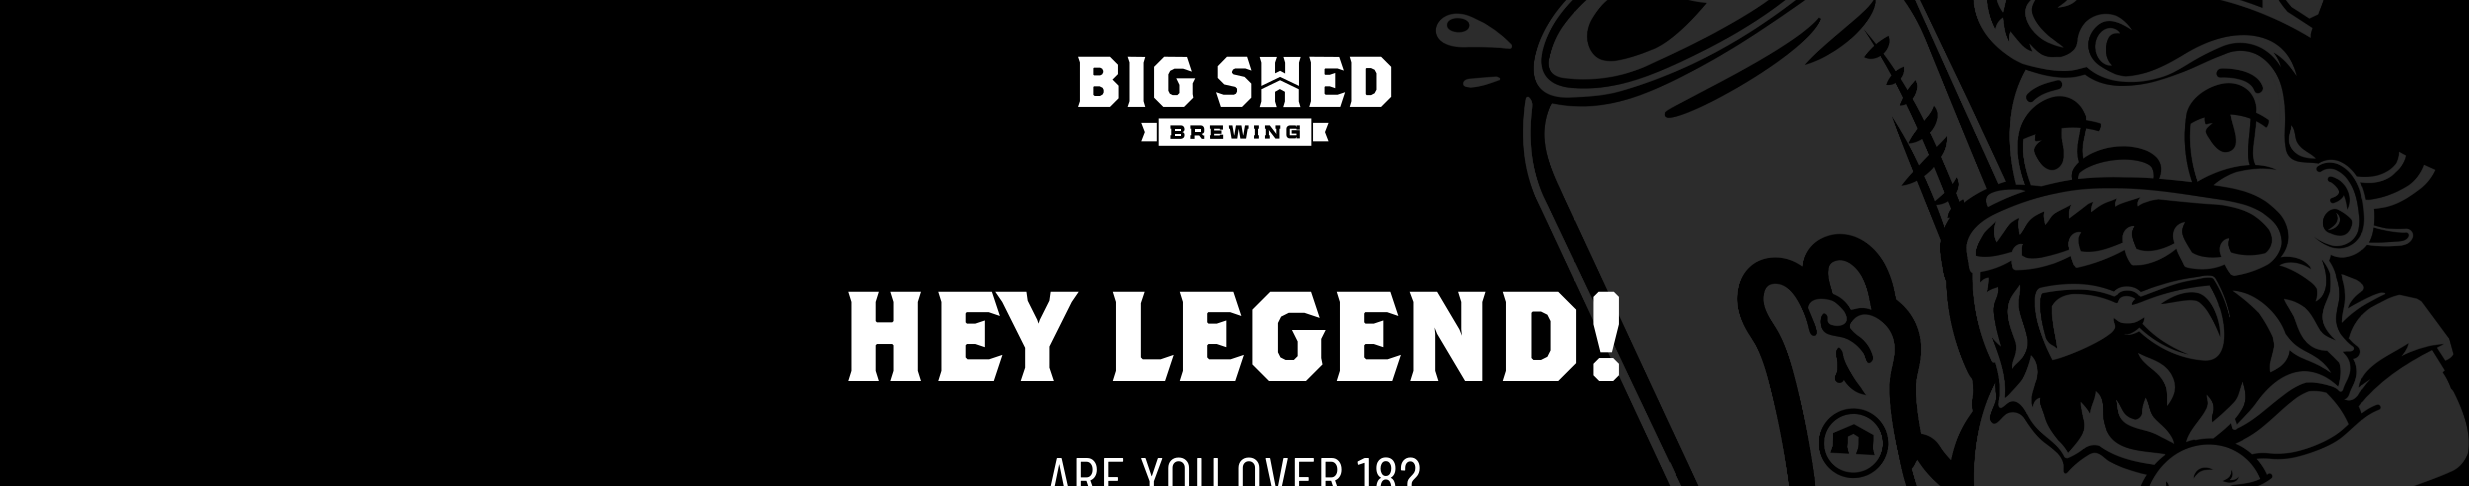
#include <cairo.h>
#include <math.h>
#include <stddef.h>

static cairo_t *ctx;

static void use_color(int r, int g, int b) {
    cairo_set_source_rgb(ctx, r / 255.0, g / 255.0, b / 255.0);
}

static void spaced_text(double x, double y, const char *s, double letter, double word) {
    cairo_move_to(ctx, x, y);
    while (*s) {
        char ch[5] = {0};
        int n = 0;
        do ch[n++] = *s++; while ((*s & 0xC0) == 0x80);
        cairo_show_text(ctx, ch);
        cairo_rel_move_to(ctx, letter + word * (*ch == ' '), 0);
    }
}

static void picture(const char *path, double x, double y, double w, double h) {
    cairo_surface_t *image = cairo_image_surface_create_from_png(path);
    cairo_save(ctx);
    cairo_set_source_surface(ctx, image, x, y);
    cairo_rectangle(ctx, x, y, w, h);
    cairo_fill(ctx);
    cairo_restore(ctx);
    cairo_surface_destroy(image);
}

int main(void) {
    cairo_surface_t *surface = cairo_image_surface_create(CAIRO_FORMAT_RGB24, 2469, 486);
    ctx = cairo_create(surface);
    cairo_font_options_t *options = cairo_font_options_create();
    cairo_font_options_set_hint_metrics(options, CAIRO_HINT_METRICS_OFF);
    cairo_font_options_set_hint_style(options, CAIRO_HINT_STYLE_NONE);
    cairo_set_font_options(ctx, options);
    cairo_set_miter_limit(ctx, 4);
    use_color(0, 0, 0);
    cairo_paint(ctx);
    picture("img1.png", 1078, 56, 314, 90);
    picture("img2.png", 1435, 0, 1034, 486);
    cairo_select_font_face(ctx, "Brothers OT", CAIRO_FONT_SLANT_NORMAL, CAIRO_FONT_WEIGHT_BOLD);
    cairo_set_font_size(ctx, 127.5);
    use_color(255, 255, 255);
    spaced_text(840, 381, "HEY LEGEND!", 0.75, 0);
    cairo_select_font_face(ctx, "Barlow Condensed", CAIRO_FONT_SLANT_NORMAL, CAIRO_FONT_WEIGHT_NORMAL);
    cairo_set_font_size(ctx, 60);
    spaced_text(1047, 500, "ARE YOU OVER 18?", 0.75, 0);
    cairo_surface_write_to_png(surface, "result.png");
    cairo_font_options_destroy(options);
    cairo_destroy(ctx);
    cairo_surface_destroy(surface);
    return 0;
}
